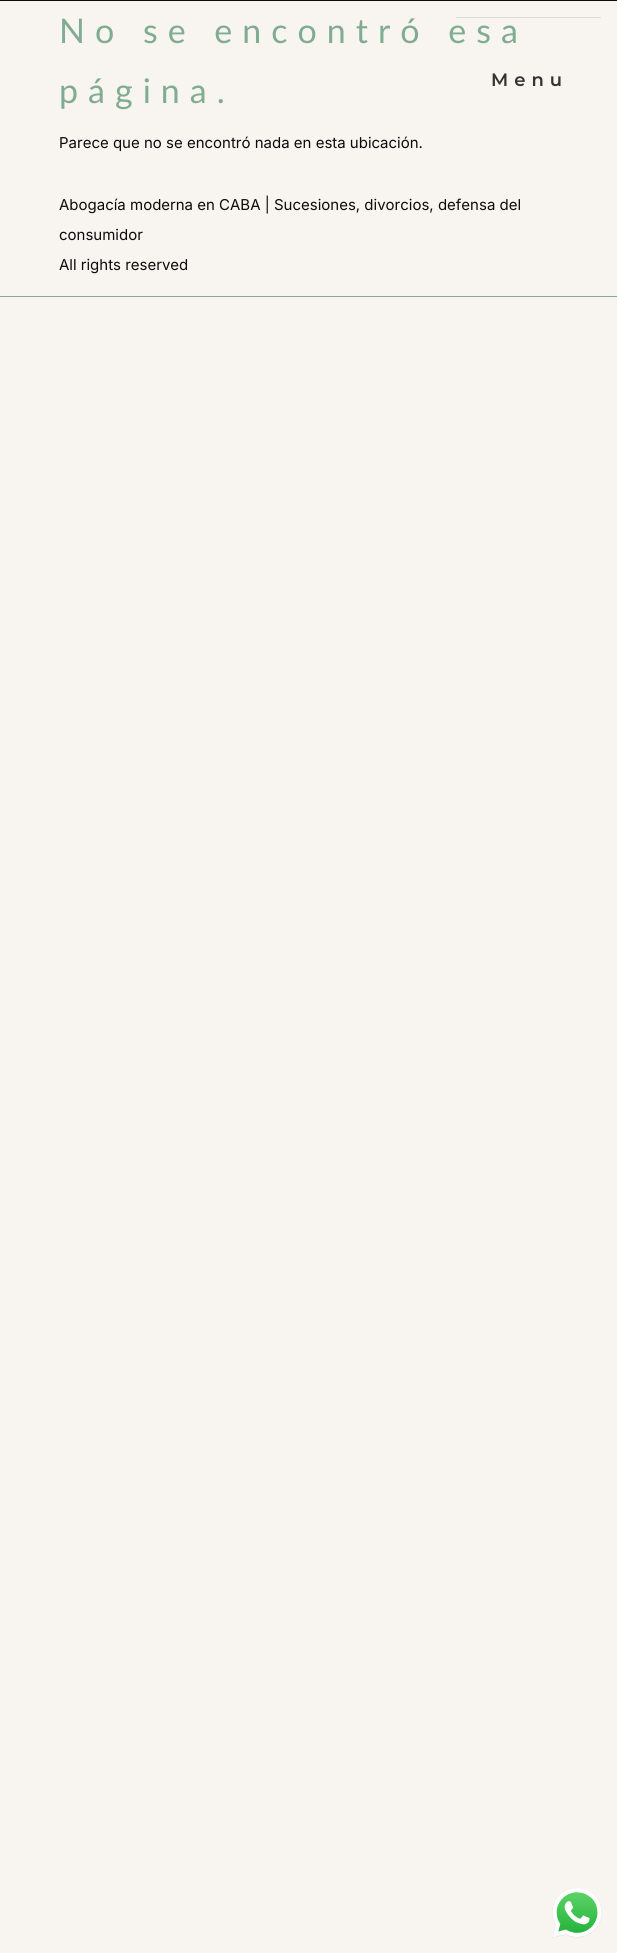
#include <cairo.h>
#include <math.h>
#include <stddef.h>

static cairo_t *ctx;

static void use_color(int r, int g, int b) {
    cairo_set_source_rgb(ctx, r / 255.0, g / 255.0, b / 255.0);
}

static void spaced_text(double x, double y, const char *s, double letter, double word) {
    cairo_move_to(ctx, x, y);
    while (*s) {
        char ch[5] = {0};
        int n = 0;
        do ch[n++] = *s++; while ((*s & 0xC0) == 0x80);
        cairo_show_text(ctx, ch);
        cairo_rel_move_to(ctx, letter + word * (*ch == ' '), 0);
    }
}

static void picture(const char *path, double x, double y, double w, double h) {
    cairo_surface_t *image = cairo_image_surface_create_from_png(path);
    cairo_save(ctx);
    cairo_set_source_surface(ctx, image, x, y);
    cairo_rectangle(ctx, x, y, w, h);
    cairo_fill(ctx);
    cairo_restore(ctx);
    cairo_surface_destroy(image);
}

int main(void) {
    cairo_surface_t *surface = cairo_image_surface_create(CAIRO_FORMAT_RGB24, 617, 1953);
    ctx = cairo_create(surface);
    cairo_font_options_t *options = cairo_font_options_create();
    cairo_font_options_set_hint_metrics(options, CAIRO_HINT_METRICS_OFF);
    cairo_font_options_set_hint_style(options, CAIRO_HINT_STYLE_NONE);
    cairo_set_font_options(ctx, options);
    cairo_set_miter_limit(ctx, 4);
    use_color(248, 244, 239);
    cairo_paint(ctx);
    cairo_select_font_face(ctx, "Lato", CAIRO_FONT_SLANT_NORMAL, CAIRO_FONT_WEIGHT_NORMAL);
    cairo_set_font_size(ctx, 34);
    use_color(128, 173, 145);
    spaced_text(59, 43, "No se encontró esa", 10, 0);
    spaced_text(59, 103, "página.", 10, 0);
    cairo_select_font_face(ctx, "Inter", CAIRO_FONT_SLANT_NORMAL, CAIRO_FONT_WEIGHT_NORMAL);
    cairo_set_font_size(ctx, 15);
    use_color(11, 11, 11);
    cairo_move_to(ctx, 59, 148);
    cairo_show_text(ctx, "Parece que no se encontró nada en esta ubicación.");
    use_color(128, 173, 145);
    cairo_rectangle(ctx, 0, 296, 617, 1);
    cairo_fill(ctx);
    use_color(11, 11, 11);
    cairo_rectangle(ctx, 0, 0, 617, 1);
    cairo_fill(ctx);
    use_color(223, 220, 215);
    cairo_rectangle(ctx, 456, 17, 145, 1);
    cairo_fill(ctx);
    cairo_select_font_face(ctx, "Montserrat SemiBold", CAIRO_FONT_SLANT_NORMAL, CAIRO_FONT_WEIGHT_NORMAL);
    cairo_set_font_size(ctx, 18);
    use_color(51, 51, 51);
    spaced_text(491, 86, "Menu", 6, 0);
    cairo_select_font_face(ctx, "Inter", CAIRO_FONT_SLANT_NORMAL, CAIRO_FONT_WEIGHT_NORMAL);
    cairo_set_font_size(ctx, 15);
    use_color(11, 11, 11);
    cairo_move_to(ctx, 59, 210);
    cairo_show_text(ctx, "Abogacía moderna en CABA | Sucesiones, divorcios, defensa del");
    cairo_move_to(ctx, 59, 240);
    cairo_show_text(ctx, "consumidor");
    cairo_move_to(ctx, 59, 270);
    cairo_show_text(ctx, "All rights reserved");
    picture("img1.png", 552, 1888, 50, 50);
    cairo_surface_write_to_png(surface, "result.png");
    cairo_font_options_destroy(options);
    cairo_destroy(ctx);
    cairo_surface_destroy(surface);
    return 0;
}
